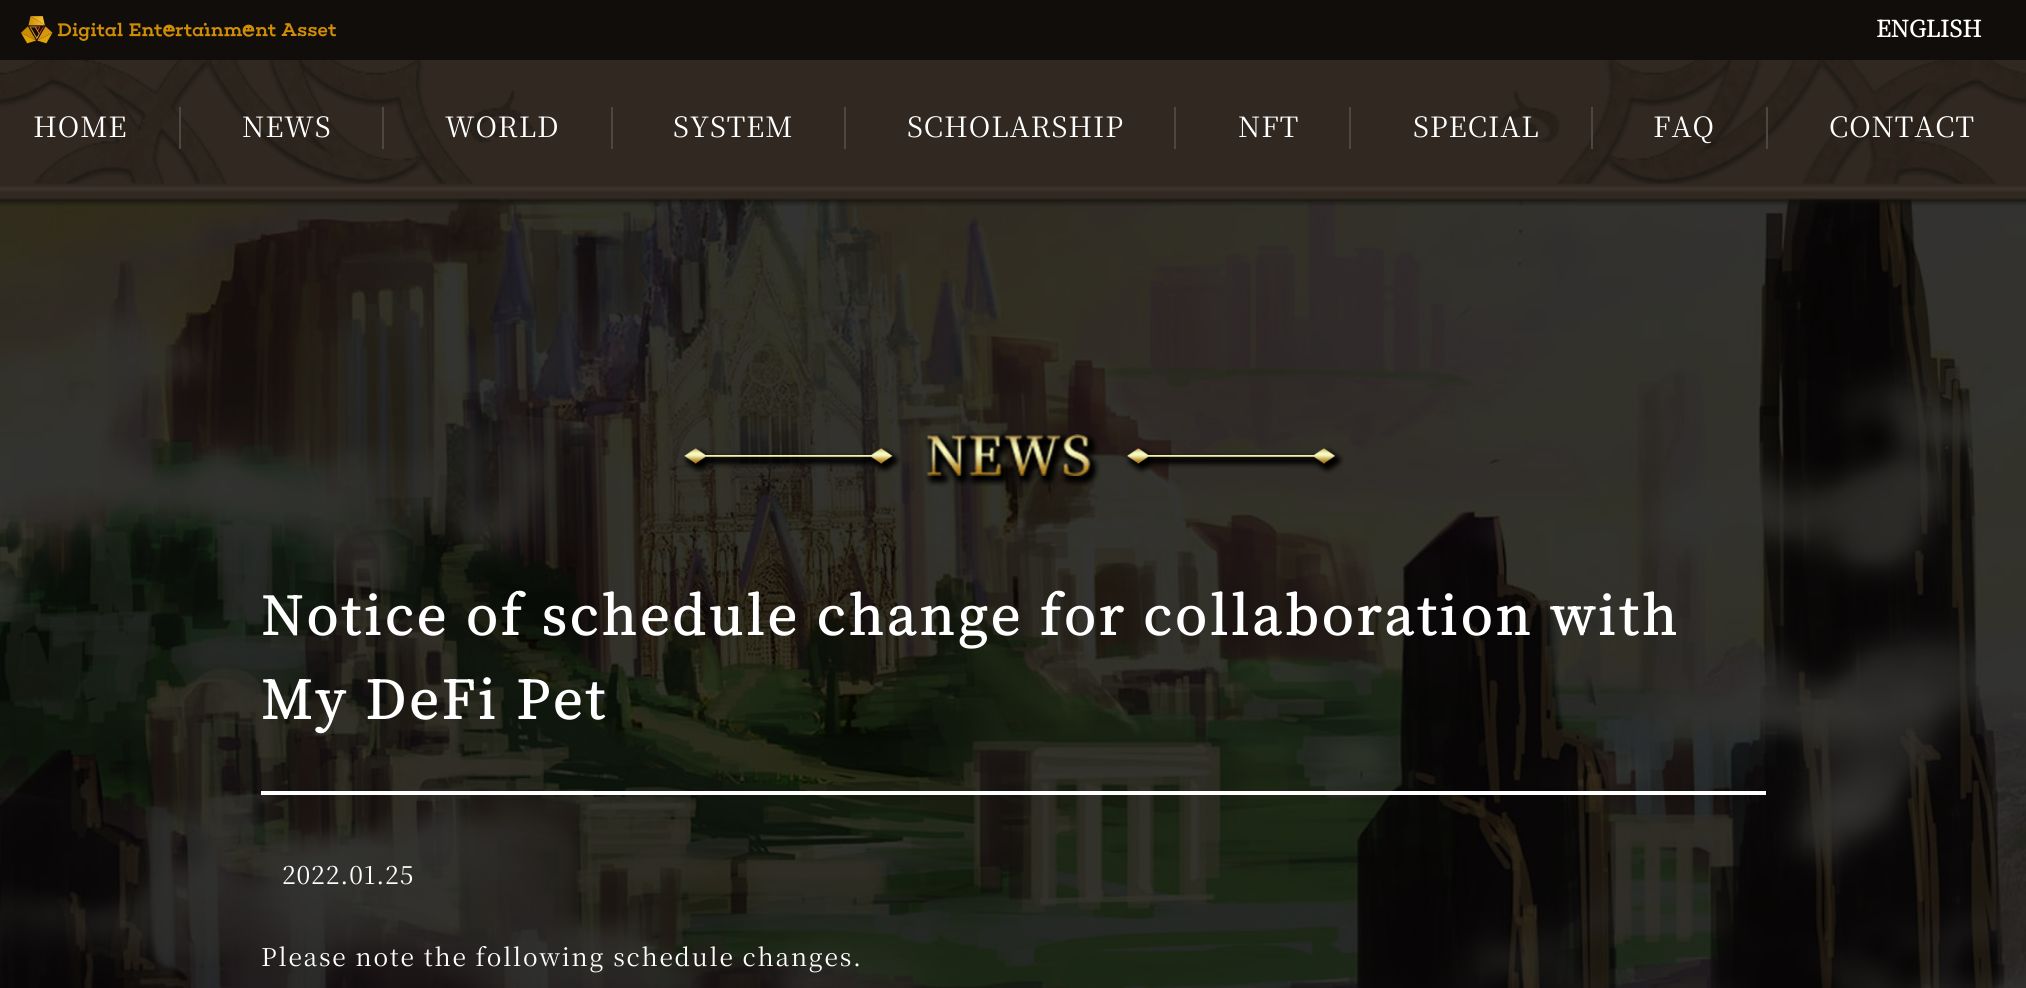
#include <cairo.h>
#include <math.h>
#include <stddef.h>

static cairo_t *ctx;

static void use_color(int r, int g, int b) {
    cairo_set_source_rgb(ctx, r / 255.0, g / 255.0, b / 255.0);
}

static void spaced_text(double x, double y, const char *s, double letter, double word) {
    cairo_move_to(ctx, x, y);
    while (*s) {
        char ch[5] = {0};
        int n = 0;
        do ch[n++] = *s++; while ((*s & 0xC0) == 0x80);
        cairo_show_text(ctx, ch);
        cairo_rel_move_to(ctx, letter + word * (*ch == ' '), 0);
    }
}

static void picture(const char *path, double x, double y, double w, double h) {
    cairo_surface_t *image = cairo_image_surface_create_from_png(path);
    cairo_save(ctx);
    cairo_set_source_surface(ctx, image, x, y);
    cairo_rectangle(ctx, x, y, w, h);
    cairo_fill(ctx);
    cairo_restore(ctx);
    cairo_surface_destroy(image);
}

int main(void) {
    cairo_surface_t *surface = cairo_image_surface_create(CAIRO_FORMAT_RGB24, 2026, 988);
    ctx = cairo_create(surface);
    cairo_font_options_t *options = cairo_font_options_create();
    cairo_font_options_set_hint_metrics(options, CAIRO_HINT_METRICS_OFF);
    cairo_font_options_set_hint_style(options, CAIRO_HINT_STYLE_NONE);
    cairo_set_font_options(ctx, options);
    cairo_set_miter_limit(ctx, 4);
    use_color(255, 255, 255);
    cairo_paint(ctx);
    picture("img5.png", 0, 198, 2026, 790);
    cairo_set_source_rgba(ctx, 0, 0, 0, 0.8);
    cairo_rectangle(ctx, 0, 198, 2026, 790);
    cairo_fill(ctx);
    picture("img1.png", 0, 60, 2026, 146);
    use_color(16, 13, 10);
    cairo_rectangle(ctx, 0, 0, 2026, 60);
    cairo_fill(ctx);
    picture("img2.png", 21, 16, 315, 28);
    cairo_select_font_face(ctx, "Noto Serif JP", CAIRO_FONT_SLANT_NORMAL, CAIRO_FONT_WEIGHT_BOLD);
    cairo_set_font_size(ctx, 22.75);
    use_color(255, 255, 255);
    cairo_move_to(ctx, 1876, 37);
    cairo_show_text(ctx, "ENGLISH");
    picture("img3.png", 0, 60, 537, 124);
    picture("img4.png", 1491, 60, 535, 124);
    cairo_select_font_face(ctx, "Noto Serif JP ExtraLight", CAIRO_FONT_SLANT_NORMAL, CAIRO_FONT_WEIGHT_NORMAL);
    cairo_set_font_size(ctx, 28);
    spaced_text(33, 137, "HOME", 0.9, 0);
    use_color(77, 70, 65);
    cairo_rectangle(ctx, 179, 107, 2, 42);
    cairo_fill(ctx);
    use_color(255, 255, 255);
    spaced_text(242, 137, "NEWS", 0.9, 0);
    use_color(77, 70, 65);
    cairo_rectangle(ctx, 382, 107, 2, 42);
    cairo_fill(ctx);
    use_color(255, 255, 255);
    spaced_text(445, 137, "WORLD", 0.9, 0);
    use_color(77, 70, 65);
    cairo_rectangle(ctx, 611, 107, 2, 42);
    cairo_fill(ctx);
    use_color(255, 255, 255);
    spaced_text(673, 137, "SYSTEM", 0.9, 0);
    use_color(77, 70, 65);
    cairo_rectangle(ctx, 844, 107, 2, 42);
    cairo_fill(ctx);
    use_color(255, 255, 255);
    spaced_text(907, 137, "SCHOLARSHIP", 0.9, 0);
    use_color(77, 70, 65);
    cairo_rectangle(ctx, 1174, 107, 2, 42);
    cairo_fill(ctx);
    use_color(255, 255, 255);
    spaced_text(1238, 137, "NFT", 0.9, 0);
    use_color(77, 70, 65);
    cairo_rectangle(ctx, 1349, 107, 2, 42);
    cairo_fill(ctx);
    use_color(255, 255, 255);
    spaced_text(1413, 137, "SPECIAL", 0.9, 0);
    use_color(77, 70, 65);
    cairo_rectangle(ctx, 1591, 107, 2, 42);
    cairo_fill(ctx);
    use_color(255, 255, 255);
    spaced_text(1653, 137, "FAQ", 0.9, 0);
    use_color(77, 70, 65);
    cairo_rectangle(ctx, 1766, 107, 2, 42);
    cairo_fill(ctx);
    use_color(255, 255, 255);
    spaced_text(1829, 137, "CONTACT", 0.9, 0);
    picture("img6.png", 683, 433, 661, 53);
    cairo_select_font_face(ctx, "Noto Serif JP", CAIRO_FONT_SLANT_NORMAL, CAIRO_FONT_WEIGHT_BOLD);
    cairo_set_font_size(ctx, 52.5);
    spaced_text(261, 635, "Notice of schedule change for collaboration with", 3.5, 0);
    spaced_text(261, 719, "My DeFi Pet", 3.5, 0);
    cairo_rectangle(ctx, 261, 791, 1505, 4);
    cairo_fill(ctx);
    cairo_select_font_face(ctx, "Noto Serif JP ExtraLight", CAIRO_FONT_SLANT_NORMAL, CAIRO_FONT_WEIGHT_NORMAL);
    cairo_set_font_size(ctx, 24.5);
    spaced_text(282, 884, "2022.01.25", 0.9, 0);
    spaced_text(261, 966, "Please note the following schedule changes.", 1.75, 0);
    cairo_surface_write_to_png(surface, "result.png");
    cairo_font_options_destroy(options);
    cairo_destroy(ctx);
    cairo_surface_destroy(surface);
    return 0;
}
